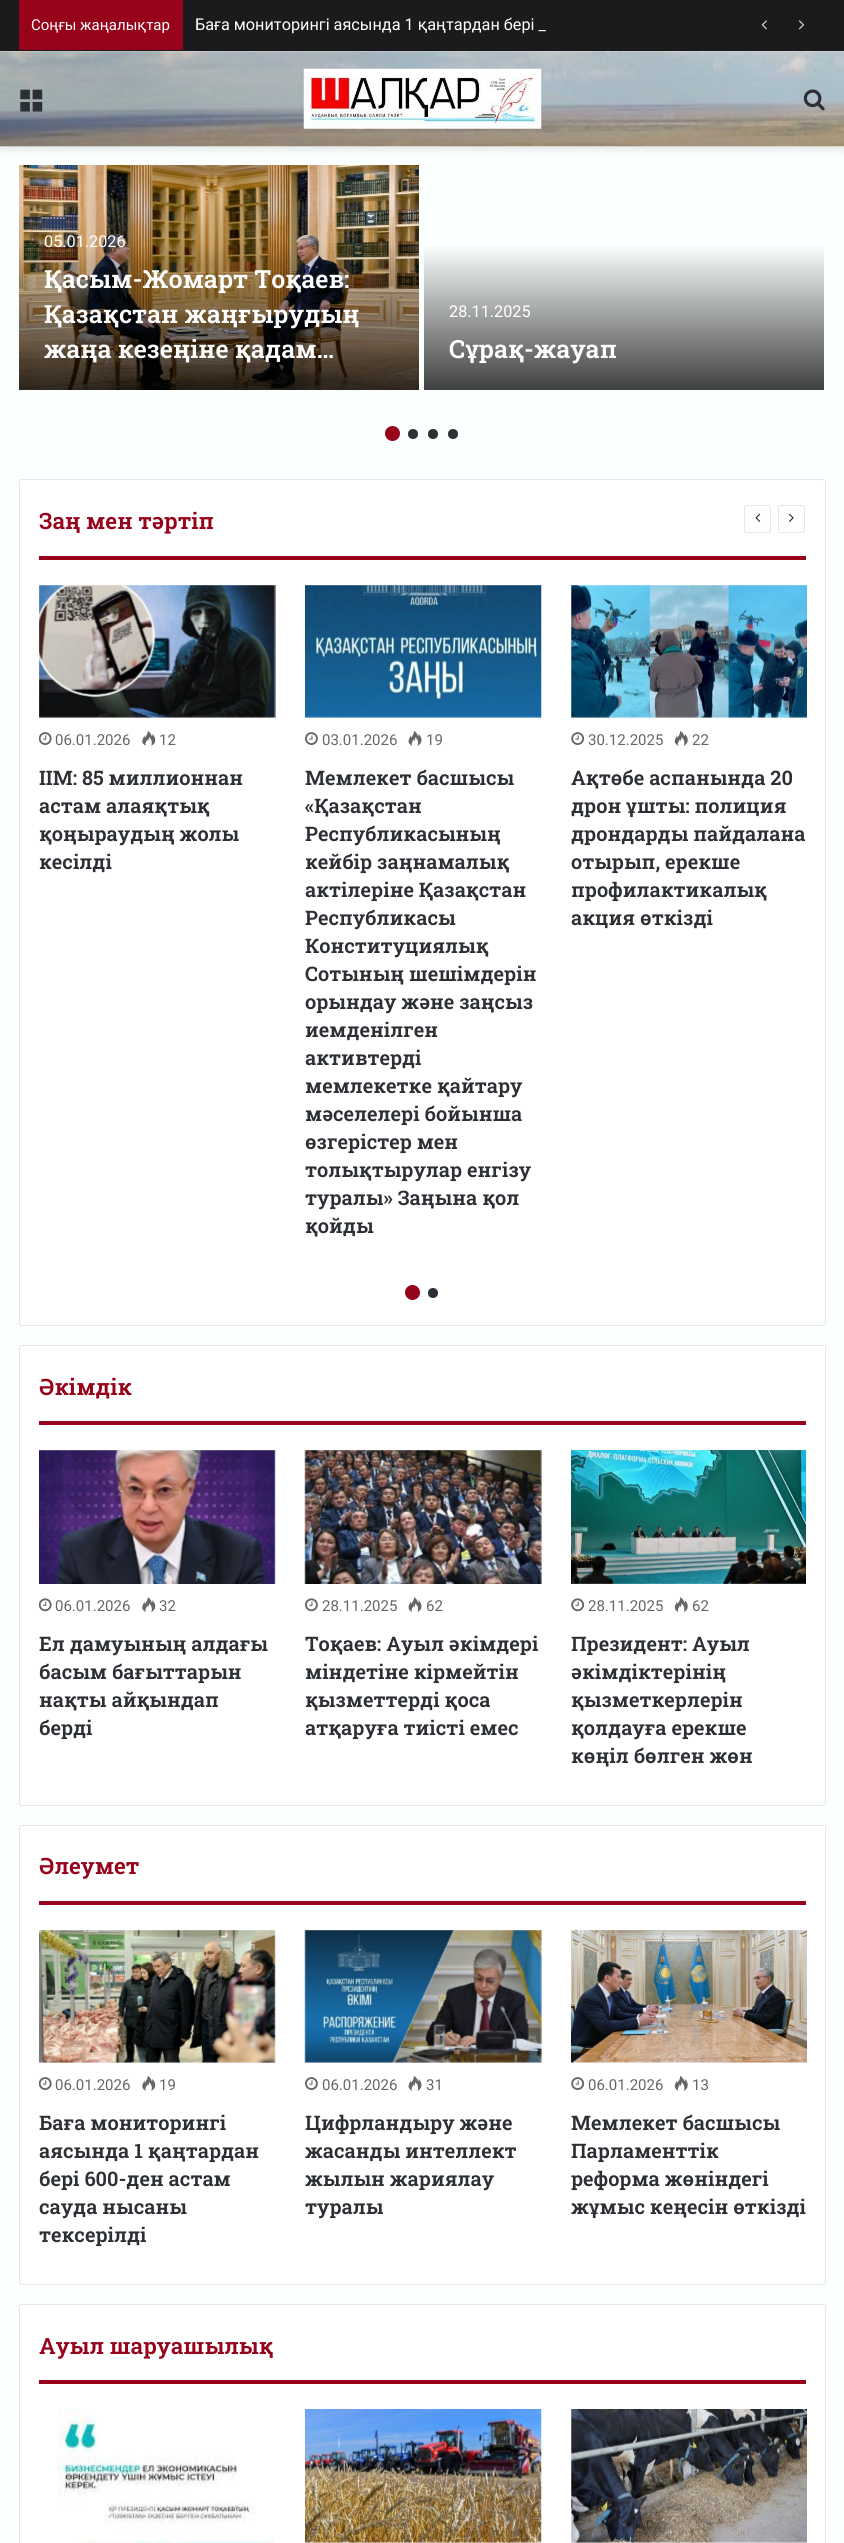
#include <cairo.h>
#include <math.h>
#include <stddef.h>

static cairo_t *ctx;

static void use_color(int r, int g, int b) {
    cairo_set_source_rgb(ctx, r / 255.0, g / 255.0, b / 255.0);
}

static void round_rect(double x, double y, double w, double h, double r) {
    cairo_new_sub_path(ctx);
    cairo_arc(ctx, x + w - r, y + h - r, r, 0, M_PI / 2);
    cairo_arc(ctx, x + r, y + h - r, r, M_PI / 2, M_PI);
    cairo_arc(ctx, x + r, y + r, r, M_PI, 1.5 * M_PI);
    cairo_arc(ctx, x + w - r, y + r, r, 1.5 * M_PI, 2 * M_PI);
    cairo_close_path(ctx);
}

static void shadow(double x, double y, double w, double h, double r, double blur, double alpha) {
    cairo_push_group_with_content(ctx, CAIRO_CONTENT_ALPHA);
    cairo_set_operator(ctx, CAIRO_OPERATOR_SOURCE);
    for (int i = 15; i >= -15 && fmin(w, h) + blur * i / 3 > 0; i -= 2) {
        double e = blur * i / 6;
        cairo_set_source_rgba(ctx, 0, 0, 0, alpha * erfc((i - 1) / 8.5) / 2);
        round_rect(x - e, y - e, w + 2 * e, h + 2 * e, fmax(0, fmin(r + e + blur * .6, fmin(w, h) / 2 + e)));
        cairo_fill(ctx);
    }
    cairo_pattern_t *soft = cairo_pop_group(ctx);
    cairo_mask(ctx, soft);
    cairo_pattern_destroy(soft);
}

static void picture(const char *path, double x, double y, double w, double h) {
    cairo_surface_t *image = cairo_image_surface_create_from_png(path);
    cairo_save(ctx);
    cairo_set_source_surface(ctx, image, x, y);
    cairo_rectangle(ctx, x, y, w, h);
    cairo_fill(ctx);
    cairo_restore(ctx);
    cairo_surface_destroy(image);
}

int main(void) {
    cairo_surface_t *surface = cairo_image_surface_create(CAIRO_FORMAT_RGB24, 844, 2543);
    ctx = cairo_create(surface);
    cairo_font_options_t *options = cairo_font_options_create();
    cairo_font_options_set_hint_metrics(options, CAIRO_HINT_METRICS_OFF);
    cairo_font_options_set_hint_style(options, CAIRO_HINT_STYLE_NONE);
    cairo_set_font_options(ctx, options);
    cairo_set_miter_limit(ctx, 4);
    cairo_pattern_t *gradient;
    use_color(251, 255, 254);
    cairo_paint(ctx);
    use_color(0, 0, 0);
    shadow(0, 55, 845, 95, 0, 4.5, 0.1);
    use_color(27, 27, 30);
    cairo_rectangle(ctx, 0, 0, 844, 50);
    cairo_fill(ctx);
    use_color(24, 24, 27);
    cairo_rectangle(ctx, 0, 50, 844, 1);
    cairo_fill(ctx);
    use_color(150, 3, 26);
    cairo_rectangle(ctx, 19, 0, 164, 50);
    cairo_fill(ctx);
    cairo_select_font_face(ctx, "Roboto", CAIRO_FONT_SLANT_NORMAL, CAIRO_FONT_WEIGHT_NORMAL);
    cairo_set_font_size(ctx, 15);
    use_color(255, 255, 255);
    cairo_move_to(ctx, 31, 30);
    cairo_show_text(ctx, "Соңғы жаңалықтар");
    cairo_set_font_size(ctx, 16.25);
    cairo_move_to(ctx, 195, 30);
    cairo_show_text(ctx, "Баға мониторингі аясында 1 қаңтардан бері _");
    round_rect(750.5, 11.5, 28, 28, 2);
    use_color(24, 24, 27);
    cairo_set_line_width(ctx, 1);
    cairo_stroke(ctx);
    picture("img1.png", 761, 20, 6, 10);
    round_rect(788.5, 11.5, 27, 28, 2);
    cairo_stroke(ctx);
    picture("img2.png", 798, 20, 7, 10);
    picture("img3.png", 0, 51, 844, 96);
    picture("img4.png", 20, 89, 23, 23);
    picture("img5.png", 303, 68, 239, 61);
    picture("img6.png", 803, 89, 22, 22);
    picture("img7.png", 19, 165, 400, 225);
    use_color(255, 255, 255);
    cairo_move_to(ctx, 44, 247);
    cairo_show_text(ctx, "05.01.2026");
    cairo_select_font_face(ctx, "Roboto Slab SemiBold", CAIRO_FONT_SLANT_NORMAL, CAIRO_FONT_WEIGHT_NORMAL);
    cairo_set_font_size(ctx, 25);
    cairo_move_to(ctx, 44, 288);
    cairo_show_text(ctx, "Қасым-Жомарт Тоқаев:");
    cairo_move_to(ctx, 44, 323);
    cairo_show_text(ctx, "Қазақстан жаңғырудың");
    cairo_move_to(ctx, 44, 358);
    cairo_show_text(ctx, "жаңа кезеңіне қадам…");
    gradient = cairo_pattern_create_linear(624, 244, 624, 390);
    cairo_pattern_add_color_stop_rgba(gradient, 0, 0.984, 1, 0.996, 1);
    cairo_pattern_add_color_stop_rgba(gradient, 1, 0.247, 0.251, 0.251, 1);
    cairo_set_source(ctx, gradient);
    cairo_pattern_destroy(gradient);
    cairo_rectangle(ctx, 424, 246, 400, 144);
    cairo_fill(ctx);
    cairo_select_font_face(ctx, "Roboto", CAIRO_FONT_SLANT_NORMAL, CAIRO_FONT_WEIGHT_NORMAL);
    cairo_set_font_size(ctx, 16.25);
    use_color(255, 255, 255);
    cairo_move_to(ctx, 449, 317);
    cairo_show_text(ctx, "28.11.2025");
    cairo_select_font_face(ctx, "Roboto Slab SemiBold", CAIRO_FONT_SLANT_NORMAL, CAIRO_FONT_WEIGHT_NORMAL);
    cairo_set_font_size(ctx, 25);
    cairo_move_to(ctx, 449, 358);
    cairo_show_text(ctx, "Сұрақ-жауап");
    use_color(150, 3, 26);
    cairo_new_path(ctx);
    cairo_arc(ctx, 392.5, 433.5, 7.5, 0, 2 * M_PI);
    cairo_fill(ctx);
    use_color(44, 47, 52);
    cairo_arc(ctx, 413, 434, 5, 0, 2 * M_PI);
    cairo_fill(ctx);
    cairo_arc(ctx, 433, 434, 5, 0, 2 * M_PI);
    cairo_fill(ctx);
    cairo_arc(ctx, 453, 434, 5, 0, 2 * M_PI);
    cairo_fill(ctx);
    use_color(255, 255, 255);
    round_rect(19.5, 479.5, 806, 846, 2);
    cairo_fill_preserve(ctx);
    use_color(229, 230, 229);
    cairo_stroke(ctx);
    use_color(150, 3, 26);
    cairo_rectangle(ctx, 39, 556, 767, 4);
    cairo_fill(ctx);
    cairo_set_font_size(ctx, 22.5);
    cairo_move_to(ctx, 39, 529);
    cairo_show_text(ctx, "Заң мен тәртіп");
    round_rect(744.5, 505.5, 26, 27, 2);
    use_color(230, 230, 230);
    cairo_stroke(ctx);
    picture("img8.png", 755, 513, 6, 9);
    round_rect(778.5, 505.5, 26, 27, 2);
    cairo_stroke(ctx);
    picture("img9.png", 788, 513, 6, 9);
    picture("img10.png", 39, 585, 237, 133);
    picture("img11.png", 39, 732, 13, 13);
    cairo_select_font_face(ctx, "Roboto", CAIRO_FONT_SLANT_NORMAL, CAIRO_FONT_WEIGHT_NORMAL);
    cairo_set_font_size(ctx, 15);
    use_color(102, 102, 102);
    cairo_move_to(ctx, 55, 745);
    cairo_show_text(ctx, "06.01.2026");
    picture("img12.png", 142, 731, 14, 15);
    cairo_move_to(ctx, 159, 745);
    cairo_show_text(ctx, "12");
    cairo_select_font_face(ctx, "Roboto Slab SemiBold", CAIRO_FONT_SLANT_NORMAL, CAIRO_FONT_WEIGHT_NORMAL);
    cairo_set_font_size(ctx, 20);
    use_color(44, 47, 52);
    cairo_move_to(ctx, 39, 785);
    cairo_show_text(ctx, "ІІМ: 85 миллионнан");
    cairo_move_to(ctx, 39, 813);
    cairo_show_text(ctx, "астам алаяқтық");
    cairo_move_to(ctx, 39, 841);
    cairo_show_text(ctx, "қоңыраудың жолы");
    cairo_move_to(ctx, 39, 869);
    cairo_show_text(ctx, "кесілді");
    picture("img13.png", 305, 585, 237, 133);
    picture("img14.png", 305, 732, 13, 13);
    cairo_select_font_face(ctx, "Roboto", CAIRO_FONT_SLANT_NORMAL, CAIRO_FONT_WEIGHT_NORMAL);
    cairo_set_font_size(ctx, 15);
    use_color(102, 102, 102);
    cairo_move_to(ctx, 322, 745);
    cairo_show_text(ctx, "03.01.2026");
    picture("img15.png", 408, 731, 14, 15);
    cairo_move_to(ctx, 426, 745);
    cairo_show_text(ctx, "19");
    cairo_select_font_face(ctx, "Roboto Slab SemiBold", CAIRO_FONT_SLANT_NORMAL, CAIRO_FONT_WEIGHT_NORMAL);
    cairo_set_font_size(ctx, 20);
    use_color(44, 47, 52);
    cairo_move_to(ctx, 305, 785);
    cairo_show_text(ctx, "Мемлекет басшысы");
    cairo_move_to(ctx, 305, 813);
    cairo_show_text(ctx, "«Қазақстан");
    cairo_move_to(ctx, 305, 841);
    cairo_show_text(ctx, "Республикасының");
    cairo_move_to(ctx, 305, 869);
    cairo_show_text(ctx, "кейбір заңнамалық");
    cairo_move_to(ctx, 305, 897);
    cairo_show_text(ctx, "актілеріне Қазақстан");
    cairo_move_to(ctx, 305, 925);
    cairo_show_text(ctx, "Республикасы");
    cairo_move_to(ctx, 305, 953);
    cairo_show_text(ctx, "Конституциялық");
    cairo_move_to(ctx, 305, 981);
    cairo_show_text(ctx, "Сотының шешімдерін");
    cairo_move_to(ctx, 305, 1009);
    cairo_show_text(ctx, "орындау және заңсыз");
    cairo_move_to(ctx, 305, 1037);
    cairo_show_text(ctx, "иемденілген");
    cairo_move_to(ctx, 305, 1065);
    cairo_show_text(ctx, "активтерді");
    cairo_move_to(ctx, 305, 1093);
    cairo_show_text(ctx, "мемлекетке қайтару");
    cairo_move_to(ctx, 305, 1121);
    cairo_show_text(ctx, "мәселелері бойынша");
    cairo_move_to(ctx, 305, 1149);
    cairo_show_text(ctx, "өзгерістер мен");
    cairo_move_to(ctx, 305, 1177);
    cairo_show_text(ctx, "толықтырулар енгізу");
    cairo_move_to(ctx, 305, 1205);
    cairo_show_text(ctx, "туралы» Заңына қол");
    cairo_move_to(ctx, 305, 1233);
    cairo_show_text(ctx, "қойды");
    picture("img16.png", 571, 585, 236, 133);
    picture("img17.png", 571, 732, 14, 13);
    cairo_select_font_face(ctx, "Roboto", CAIRO_FONT_SLANT_NORMAL, CAIRO_FONT_WEIGHT_NORMAL);
    cairo_set_font_size(ctx, 15);
    use_color(102, 102, 102);
    cairo_move_to(ctx, 588, 745);
    cairo_show_text(ctx, "30.12.2025");
    picture("img18.png", 674, 731, 14, 15);
    cairo_move_to(ctx, 692, 745);
    cairo_show_text(ctx, "22");
    cairo_select_font_face(ctx, "Roboto Slab SemiBold", CAIRO_FONT_SLANT_NORMAL, CAIRO_FONT_WEIGHT_NORMAL);
    cairo_set_font_size(ctx, 20);
    use_color(44, 47, 52);
    cairo_move_to(ctx, 571, 785);
    cairo_show_text(ctx, "Ақтөбе аспанында 20");
    cairo_move_to(ctx, 571, 813);
    cairo_show_text(ctx, "дрон ұшты: полиция");
    cairo_move_to(ctx, 571, 841);
    cairo_show_text(ctx, "дрондарды пайдалана");
    cairo_move_to(ctx, 571, 869);
    cairo_show_text(ctx, "отырып, ерекше");
    cairo_move_to(ctx, 571, 897);
    cairo_show_text(ctx, "профилактикалық");
    cairo_move_to(ctx, 571, 925);
    cairo_show_text(ctx, "акция өткізді");
    use_color(150, 3, 26);
    cairo_new_path(ctx);
    cairo_arc(ctx, 412.5, 1292.5, 7.5, 0, 2 * M_PI);
    cairo_fill(ctx);
    use_color(44, 47, 52);
    cairo_arc(ctx, 433, 1293, 5, 0, 2 * M_PI);
    cairo_fill(ctx);
    use_color(255, 255, 255);
    round_rect(19.5, 1345.5, 806, 460, 2);
    cairo_fill_preserve(ctx);
    use_color(229, 230, 229);
    cairo_stroke(ctx);
    use_color(150, 3, 26);
    cairo_rectangle(ctx, 39, 1421, 767, 4);
    cairo_fill(ctx);
    cairo_set_font_size(ctx, 22.5);
    cairo_move_to(ctx, 39, 1395);
    cairo_show_text(ctx, "Әкімдік");
    picture("img19.png", 39, 1450, 237, 134);
    picture("img20.png", 39, 1598, 13, 14);
    cairo_select_font_face(ctx, "Roboto", CAIRO_FONT_SLANT_NORMAL, CAIRO_FONT_WEIGHT_NORMAL);
    cairo_set_font_size(ctx, 15);
    use_color(102, 102, 102);
    cairo_move_to(ctx, 55, 1611);
    cairo_show_text(ctx, "06.01.2026");
    picture("img21.png", 142, 1597, 14, 15);
    cairo_move_to(ctx, 159, 1611);
    cairo_show_text(ctx, "32");
    cairo_select_font_face(ctx, "Roboto Slab SemiBold", CAIRO_FONT_SLANT_NORMAL, CAIRO_FONT_WEIGHT_NORMAL);
    cairo_set_font_size(ctx, 20);
    use_color(44, 47, 52);
    cairo_move_to(ctx, 39, 1651);
    cairo_show_text(ctx, "Ел дамуының алдағы");
    cairo_move_to(ctx, 39, 1679);
    cairo_show_text(ctx, "басым бағыттарын");
    cairo_move_to(ctx, 39, 1707);
    cairo_show_text(ctx, "нақты айқындап");
    cairo_move_to(ctx, 39, 1735);
    cairo_show_text(ctx, "берді");
    picture("img22.png", 304, 1450, 238, 134);
    picture("img23.png", 305, 1598, 13, 14);
    cairo_select_font_face(ctx, "Roboto", CAIRO_FONT_SLANT_NORMAL, CAIRO_FONT_WEIGHT_NORMAL);
    cairo_set_font_size(ctx, 15);
    use_color(102, 102, 102);
    cairo_move_to(ctx, 322, 1611);
    cairo_show_text(ctx, "28.11.2025");
    picture("img24.png", 408, 1597, 14, 15);
    cairo_move_to(ctx, 426, 1611);
    cairo_show_text(ctx, "62");
    cairo_select_font_face(ctx, "Roboto Slab SemiBold", CAIRO_FONT_SLANT_NORMAL, CAIRO_FONT_WEIGHT_NORMAL);
    cairo_set_font_size(ctx, 20);
    use_color(44, 47, 52);
    cairo_move_to(ctx, 305, 1651);
    cairo_show_text(ctx, "Тоқаев: Ауыл әкімдері");
    cairo_move_to(ctx, 305, 1679);
    cairo_show_text(ctx, "міндетіне кірмейтін");
    cairo_move_to(ctx, 305, 1707);
    cairo_show_text(ctx, "қызметтерді қоса");
    cairo_move_to(ctx, 305, 1735);
    cairo_show_text(ctx, "атқаруға тиісті емес");
    picture("img25.png", 571, 1450, 235, 134);
    picture("img26.png", 571, 1598, 14, 14);
    cairo_select_font_face(ctx, "Roboto", CAIRO_FONT_SLANT_NORMAL, CAIRO_FONT_WEIGHT_NORMAL);
    cairo_set_font_size(ctx, 15);
    use_color(102, 102, 102);
    cairo_move_to(ctx, 588, 1611);
    cairo_show_text(ctx, "28.11.2025");
    picture("img27.png", 674, 1597, 14, 15);
    cairo_move_to(ctx, 692, 1611);
    cairo_show_text(ctx, "62");
    cairo_select_font_face(ctx, "Roboto Slab SemiBold", CAIRO_FONT_SLANT_NORMAL, CAIRO_FONT_WEIGHT_NORMAL);
    cairo_set_font_size(ctx, 20);
    use_color(44, 47, 52);
    cairo_move_to(ctx, 571, 1651);
    cairo_show_text(ctx, "Президент: Ауыл");
    cairo_move_to(ctx, 571, 1679);
    cairo_show_text(ctx, "әкімдіктерінің");
    cairo_move_to(ctx, 571, 1707);
    cairo_show_text(ctx, "қызметкерлерін");
    cairo_move_to(ctx, 571, 1735);
    cairo_show_text(ctx, "қолдауға ерекше");
    cairo_move_to(ctx, 571, 1763);
    cairo_show_text(ctx, "көңіл бөлген жөн");
    use_color(255, 255, 255);
    round_rect(19.5, 1825.5, 806, 459, 2);
    cairo_fill_preserve(ctx);
    use_color(229, 230, 229);
    cairo_stroke(ctx);
    use_color(150, 3, 26);
    cairo_rectangle(ctx, 39, 1901, 767, 4);
    cairo_fill(ctx);
    cairo_set_font_size(ctx, 22.5);
    cairo_move_to(ctx, 39, 1874);
    cairo_show_text(ctx, "Әлеумет");
    picture("img28.png", 39, 1930, 237, 133);
    picture("img11.png", 39, 2077, 13, 13);
    cairo_select_font_face(ctx, "Roboto", CAIRO_FONT_SLANT_NORMAL, CAIRO_FONT_WEIGHT_NORMAL);
    cairo_set_font_size(ctx, 15);
    use_color(102, 102, 102);
    cairo_move_to(ctx, 55, 2090);
    cairo_show_text(ctx, "06.01.2026");
    picture("img12.png", 142, 2076, 14, 15);
    cairo_move_to(ctx, 159, 2090);
    cairo_show_text(ctx, "19");
    cairo_select_font_face(ctx, "Roboto Slab SemiBold", CAIRO_FONT_SLANT_NORMAL, CAIRO_FONT_WEIGHT_NORMAL);
    cairo_set_font_size(ctx, 20);
    use_color(44, 47, 52);
    cairo_move_to(ctx, 39, 2130);
    cairo_show_text(ctx, "Баға мониторингі");
    cairo_move_to(ctx, 39, 2158);
    cairo_show_text(ctx, "аясында 1 қаңтардан");
    cairo_move_to(ctx, 39, 2186);
    cairo_show_text(ctx, "бері 600-ден астам");
    cairo_move_to(ctx, 39, 2214);
    cairo_show_text(ctx, "сауда нысаны");
    cairo_move_to(ctx, 39, 2242);
    cairo_show_text(ctx, "тексерілді");
    picture("img29.png", 304, 1930, 238, 133);
    picture("img14.png", 305, 2077, 13, 13);
    cairo_select_font_face(ctx, "Roboto", CAIRO_FONT_SLANT_NORMAL, CAIRO_FONT_WEIGHT_NORMAL);
    cairo_set_font_size(ctx, 15);
    use_color(102, 102, 102);
    cairo_move_to(ctx, 322, 2090);
    cairo_show_text(ctx, "06.01.2026");
    picture("img15.png", 408, 2076, 14, 15);
    cairo_move_to(ctx, 426, 2090);
    cairo_show_text(ctx, "31");
    cairo_select_font_face(ctx, "Roboto Slab SemiBold", CAIRO_FONT_SLANT_NORMAL, CAIRO_FONT_WEIGHT_NORMAL);
    cairo_set_font_size(ctx, 20);
    use_color(44, 47, 52);
    cairo_move_to(ctx, 305, 2130);
    cairo_show_text(ctx, "Цифрландыру және");
    cairo_move_to(ctx, 305, 2158);
    cairo_show_text(ctx, "жасанды интеллект");
    cairo_move_to(ctx, 305, 2186);
    cairo_show_text(ctx, "жылын жариялау");
    cairo_move_to(ctx, 305, 2214);
    cairo_show_text(ctx, "туралы");
    picture("img30.png", 571, 1930, 236, 133);
    picture("img17.png", 571, 2077, 14, 13);
    cairo_select_font_face(ctx, "Roboto", CAIRO_FONT_SLANT_NORMAL, CAIRO_FONT_WEIGHT_NORMAL);
    cairo_set_font_size(ctx, 15);
    use_color(102, 102, 102);
    cairo_move_to(ctx, 588, 2090);
    cairo_show_text(ctx, "06.01.2026");
    picture("img18.png", 674, 2076, 14, 15);
    cairo_move_to(ctx, 692, 2090);
    cairo_show_text(ctx, "13");
    cairo_select_font_face(ctx, "Roboto Slab SemiBold", CAIRO_FONT_SLANT_NORMAL, CAIRO_FONT_WEIGHT_NORMAL);
    cairo_set_font_size(ctx, 20);
    use_color(44, 47, 52);
    cairo_move_to(ctx, 571, 2130);
    cairo_show_text(ctx, "Мемлекет басшысы");
    cairo_move_to(ctx, 571, 2158);
    cairo_show_text(ctx, "Парламенттік");
    cairo_move_to(ctx, 571, 2186);
    cairo_show_text(ctx, "реформа жөніндегі");
    cairo_move_to(ctx, 571, 2214);
    cairo_show_text(ctx, "жұмыс кеңесін өткізді");
    use_color(255, 255, 255);
    round_rect(19.5, 2304.5, 806, 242, 2);
    cairo_fill_preserve(ctx);
    use_color(229, 230, 229);
    cairo_stroke(ctx);
    use_color(150, 3, 26);
    cairo_rectangle(ctx, 39, 2380, 767, 4);
    cairo_fill(ctx);
    cairo_set_font_size(ctx, 22.5);
    cairo_move_to(ctx, 39, 2354);
    cairo_show_text(ctx, "Ауыл шаруашылық");
    picture("img31.png", 57, 2409, 217, 134);
    picture("img32.png", 305, 2409, 237, 134);
    picture("img33.png", 571, 2409, 236, 134);
    cairo_surface_write_to_png(surface, "result.png");
    cairo_font_options_destroy(options);
    cairo_destroy(ctx);
    cairo_surface_destroy(surface);
    return 0;
}
